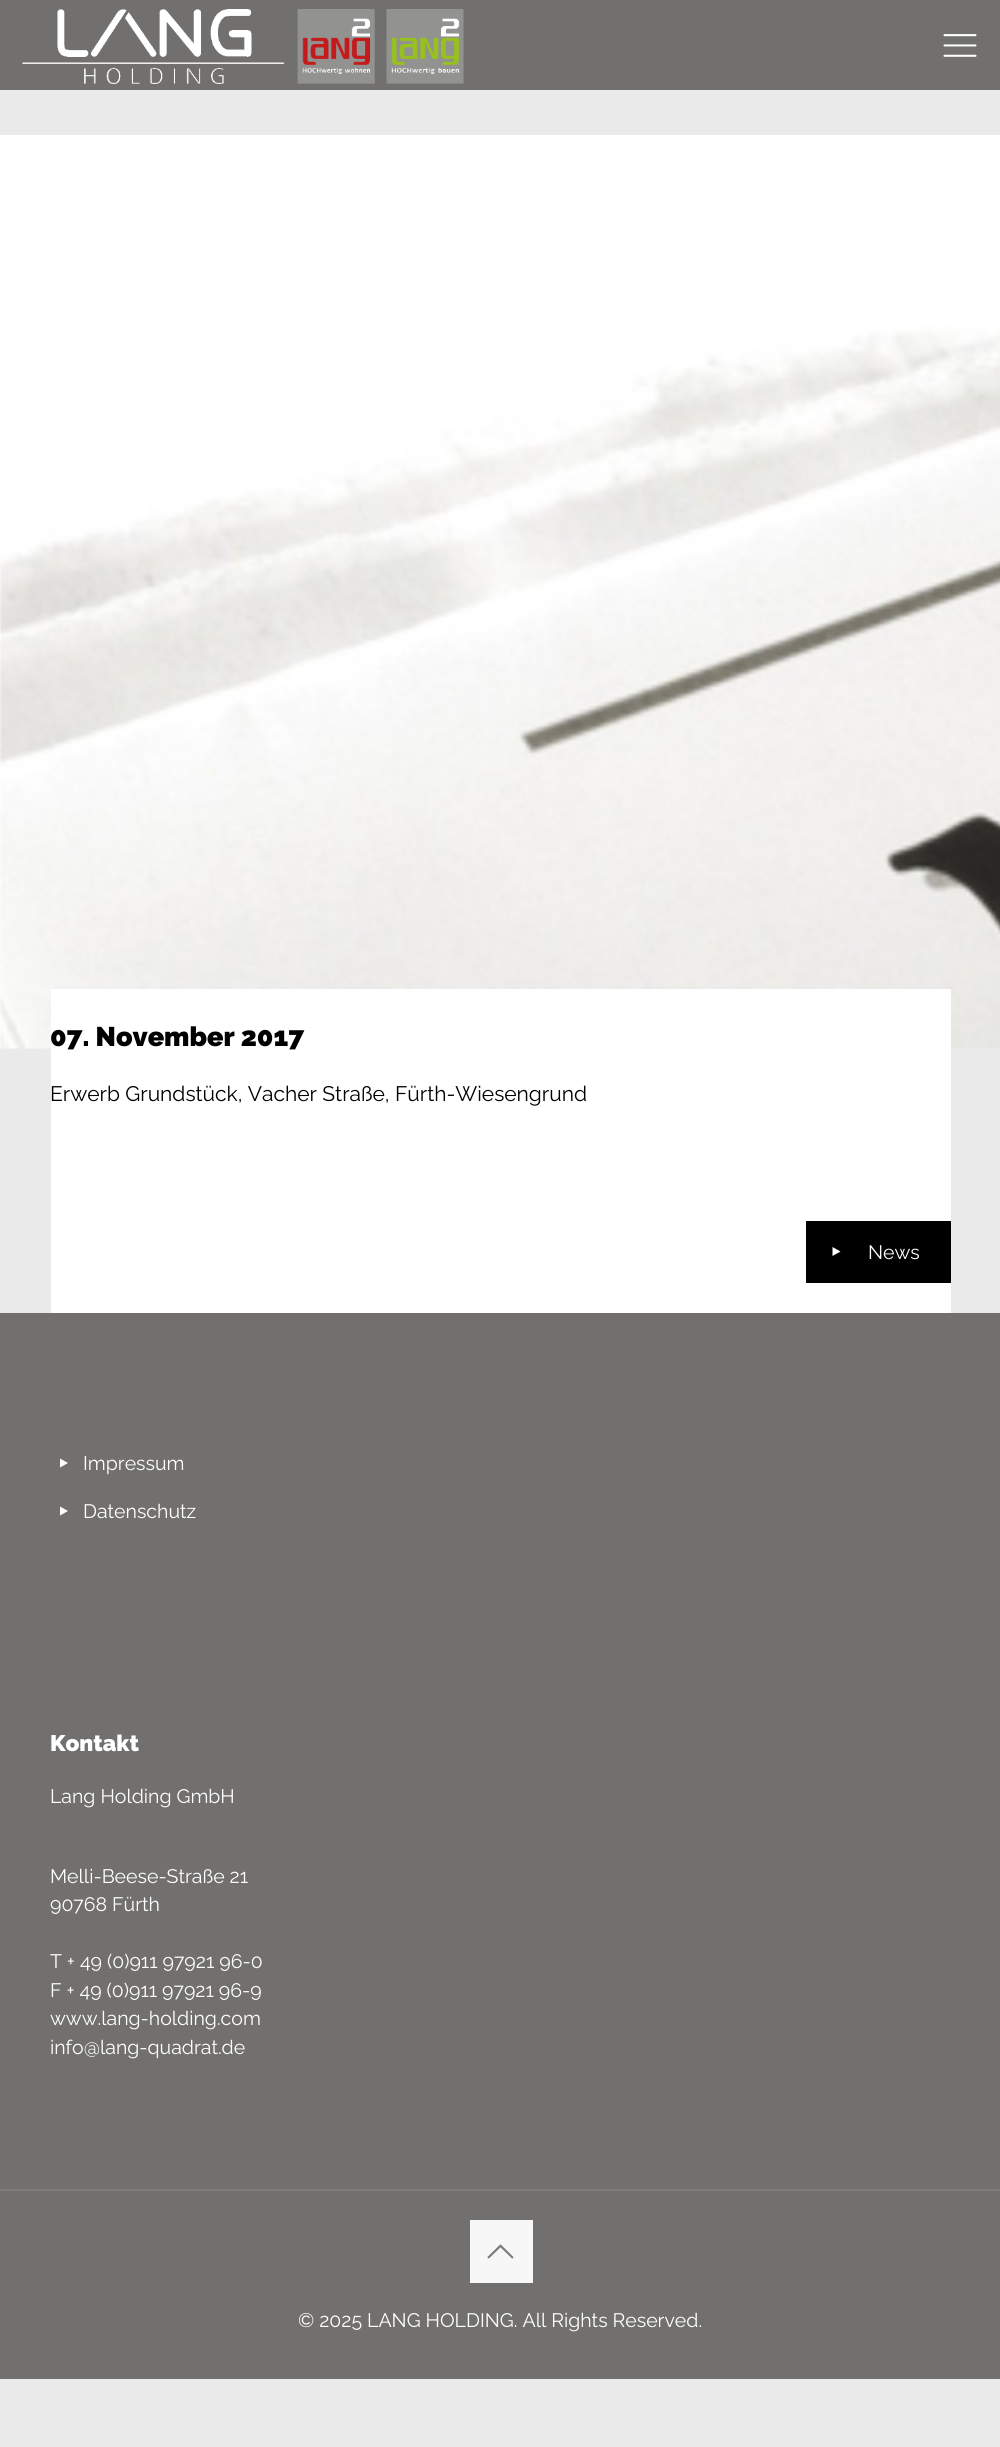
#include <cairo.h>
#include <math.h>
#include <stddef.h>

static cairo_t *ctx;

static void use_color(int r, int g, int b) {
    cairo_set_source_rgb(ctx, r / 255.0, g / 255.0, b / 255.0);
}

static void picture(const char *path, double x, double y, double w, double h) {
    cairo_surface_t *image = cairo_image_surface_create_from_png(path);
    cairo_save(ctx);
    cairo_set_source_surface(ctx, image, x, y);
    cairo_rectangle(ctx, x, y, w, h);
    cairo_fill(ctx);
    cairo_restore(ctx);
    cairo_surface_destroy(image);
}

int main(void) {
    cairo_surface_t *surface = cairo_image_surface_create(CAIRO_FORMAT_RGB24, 1000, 2447);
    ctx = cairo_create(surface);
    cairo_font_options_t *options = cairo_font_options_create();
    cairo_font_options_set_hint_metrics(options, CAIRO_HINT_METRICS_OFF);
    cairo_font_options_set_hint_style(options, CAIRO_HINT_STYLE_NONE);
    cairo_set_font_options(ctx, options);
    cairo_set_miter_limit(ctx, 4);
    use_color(234, 234, 234);
    cairo_paint(ctx);
    use_color(113, 112, 110);
    cairo_rectangle(ctx, 0, 0, 1000, 90);
    cairo_fill(ctx);
    picture("img1.png", 22, 9, 442, 75);
    picture("img2.png", 943, 34, 34, 23);
    picture("img3.png", 0, 135, 1000, 914);
    use_color(255, 255, 255);
    cairo_rectangle(ctx, 51, 989, 900, 324);
    cairo_fill(ctx);
    cairo_select_font_face(ctx, "Raleway Black", CAIRO_FONT_SLANT_NORMAL, CAIRO_FONT_WEIGHT_NORMAL);
    cairo_set_font_size(ctx, 27);
    use_color(0, 0, 0);
    cairo_move_to(ctx, 50, 1046);
    cairo_show_text(ctx, "07. November 2017");
    cairo_select_font_face(ctx, "Raleway", CAIRO_FONT_SLANT_NORMAL, CAIRO_FONT_WEIGHT_NORMAL);
    cairo_set_font_size(ctx, 21);
    cairo_move_to(ctx, 50, 1101);
    cairo_show_text(ctx, "Erwerb Grundstück, Vacher Straße, Fürth-Wiesengrund");
    cairo_rectangle(ctx, 806, 1221, 145, 62);
    cairo_fill(ctx);
    use_color(255, 255, 255);
    cairo_new_path(ctx);
    cairo_move_to(ctx, 832.5, 1247);
    cairo_line_to(ctx, 840.5, 1251.5);
    cairo_line_to(ctx, 832.5, 1256);
    cairo_close_path(ctx);
    cairo_fill(ctx);
    cairo_set_font_size(ctx, 19.5);
    cairo_move_to(ctx, 868, 1259);
    cairo_show_text(ctx, "News");
    use_color(113, 112, 110);
    cairo_rectangle(ctx, 0, 1313, 1000, 1066);
    cairo_fill(ctx);
    use_color(255, 255, 255);
    cairo_new_path(ctx);
    cairo_move_to(ctx, 60, 1458.5);
    cairo_line_to(ctx, 68, 1463);
    cairo_line_to(ctx, 60, 1467.5);
    cairo_close_path(ctx);
    cairo_fill(ctx);
    cairo_move_to(ctx, 83, 1470);
    cairo_show_text(ctx, "Impressum");
    cairo_new_path(ctx);
    cairo_move_to(ctx, 60, 1506.5);
    cairo_line_to(ctx, 68, 1511);
    cairo_line_to(ctx, 60, 1515.5);
    cairo_close_path(ctx);
    cairo_fill(ctx);
    cairo_move_to(ctx, 83, 1518);
    cairo_show_text(ctx, "Datenschutz");
    cairo_select_font_face(ctx, "Raleway Black", CAIRO_FONT_SLANT_NORMAL, CAIRO_FONT_WEIGHT_NORMAL);
    cairo_set_font_size(ctx, 22.5);
    cairo_move_to(ctx, 50, 1751);
    cairo_show_text(ctx, "Kontakt");
    cairo_select_font_face(ctx, "Raleway", CAIRO_FONT_SLANT_NORMAL, CAIRO_FONT_WEIGHT_NORMAL);
    cairo_set_font_size(ctx, 19.5);
    cairo_move_to(ctx, 50, 1803);
    cairo_show_text(ctx, "Lang Holding GmbH");
    cairo_move_to(ctx, 50, 1883);
    cairo_show_text(ctx, "Melli-Beese-Straße 21");
    cairo_move_to(ctx, 50, 1911);
    cairo_show_text(ctx, "90768 Fürth");
    cairo_move_to(ctx, 50, 1968);
    cairo_show_text(ctx, "T + 49 (0)911 97921 96-0");
    cairo_move_to(ctx, 50, 1997);
    cairo_show_text(ctx, "F + 49 (0)911 97921 96-9");
    cairo_move_to(ctx, 50, 2025);
    cairo_show_text(ctx, "www.lang-holding.com");
    cairo_move_to(ctx, 50, 2054);
    cairo_show_text(ctx, "info@lang-quadrat.de");
    use_color(127, 126, 125);
    cairo_rectangle(ctx, 0, 2189, 1000, 2);
    cairo_fill(ctx);
    use_color(247, 247, 247);
    cairo_rectangle(ctx, 470, 2220, 63, 63);
    cairo_fill(ctx);
    picture("img4.png", 487, 2244, 27, 15);
    use_color(255, 255, 255);
    cairo_move_to(ctx, 298, 2327);
    cairo_show_text(ctx, "© 2025 LANG HOLDING. All Rights Reserved.");
    cairo_surface_write_to_png(surface, "result.png");
    cairo_font_options_destroy(options);
    cairo_destroy(ctx);
    cairo_surface_destroy(surface);
    return 0;
}
